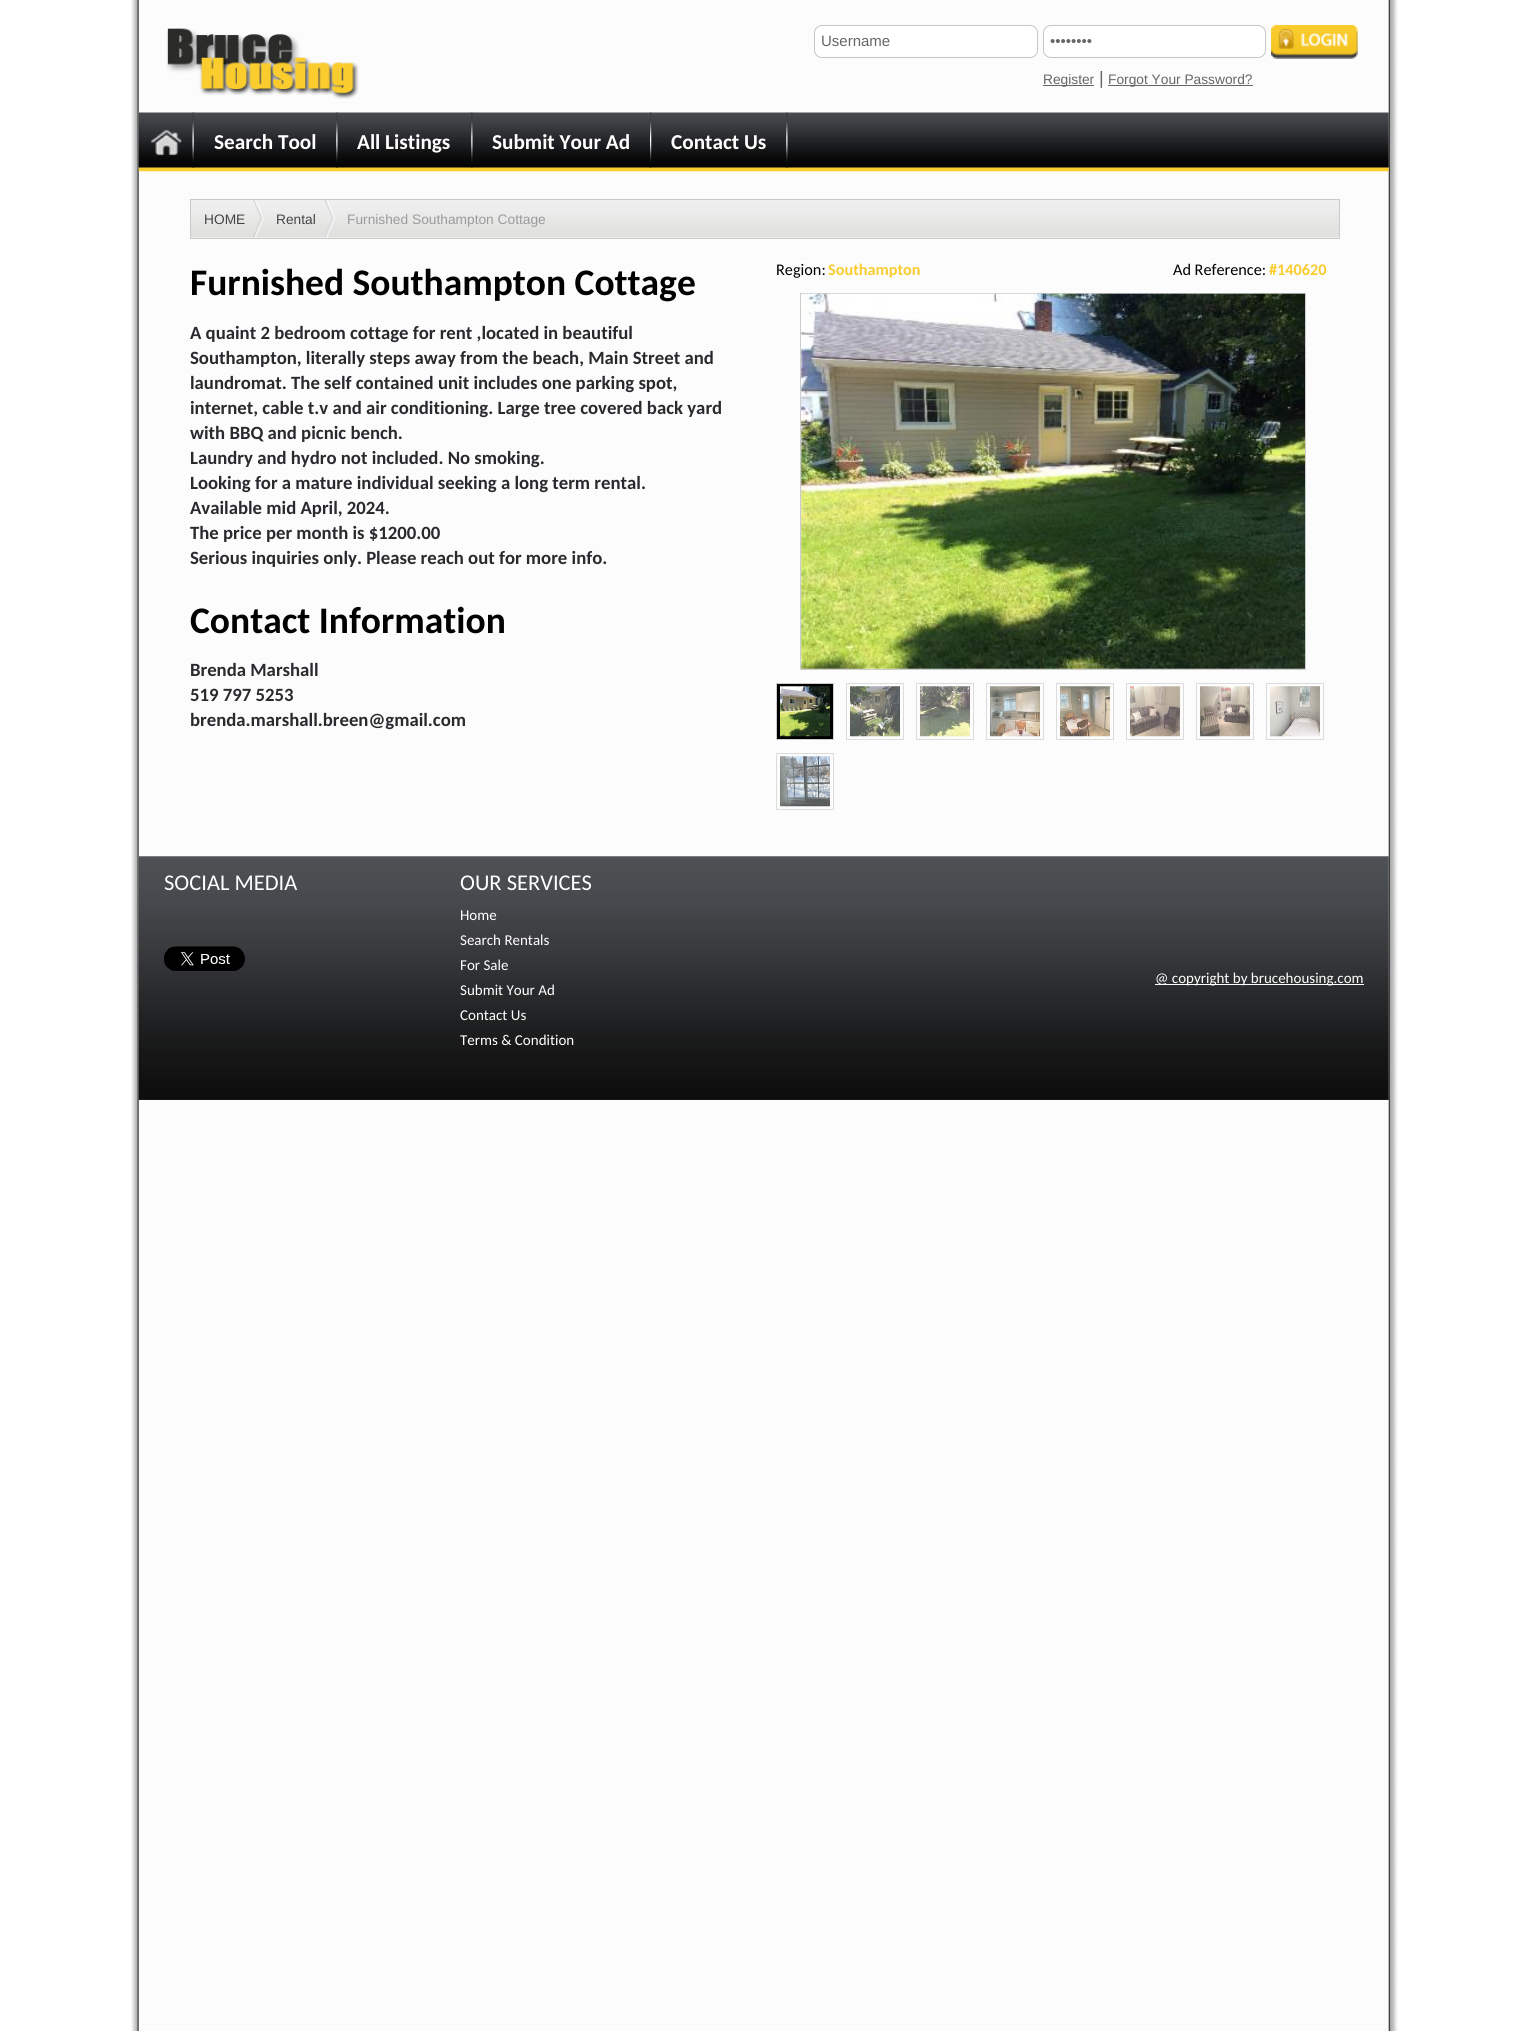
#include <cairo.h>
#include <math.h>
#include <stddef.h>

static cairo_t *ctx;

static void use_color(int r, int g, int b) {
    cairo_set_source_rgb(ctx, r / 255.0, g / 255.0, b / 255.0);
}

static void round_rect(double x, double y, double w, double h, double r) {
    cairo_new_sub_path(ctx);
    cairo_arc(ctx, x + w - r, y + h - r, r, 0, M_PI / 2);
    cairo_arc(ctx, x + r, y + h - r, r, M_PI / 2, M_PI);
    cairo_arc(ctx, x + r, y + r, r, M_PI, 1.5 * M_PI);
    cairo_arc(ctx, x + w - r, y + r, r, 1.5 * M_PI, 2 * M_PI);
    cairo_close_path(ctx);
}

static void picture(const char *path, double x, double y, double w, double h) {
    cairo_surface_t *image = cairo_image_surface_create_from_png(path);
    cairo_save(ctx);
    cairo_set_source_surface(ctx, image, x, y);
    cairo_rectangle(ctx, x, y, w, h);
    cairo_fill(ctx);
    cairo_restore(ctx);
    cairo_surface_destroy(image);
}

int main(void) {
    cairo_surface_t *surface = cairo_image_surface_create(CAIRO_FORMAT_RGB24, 1527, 2031);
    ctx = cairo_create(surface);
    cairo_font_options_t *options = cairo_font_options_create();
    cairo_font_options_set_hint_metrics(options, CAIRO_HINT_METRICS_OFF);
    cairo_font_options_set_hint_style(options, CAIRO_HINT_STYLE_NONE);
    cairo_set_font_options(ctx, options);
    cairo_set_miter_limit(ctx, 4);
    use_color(255, 255, 255);
    cairo_paint(ctx);
    picture("img1.png", 131, 0, 1267, 2031);
    picture("img2.png", 166, 28, 193, 71);
    use_color(255, 255, 255);
    round_rect(814.5, 25.5, 223, 32, 7.5);
    cairo_fill_preserve(ctx);
    use_color(199, 197, 197);
    cairo_set_line_width(ctx, 1);
    cairo_stroke(ctx);
    cairo_select_font_face(ctx, "Liberation Sans", CAIRO_FONT_SLANT_NORMAL, CAIRO_FONT_WEIGHT_NORMAL);
    cairo_set_font_size(ctx, 15);
    use_color(102, 102, 102);
    cairo_move_to(ctx, 821, 46);
    cairo_show_text(ctx, "Username");
    use_color(255, 255, 255);
    round_rect(1043.5, 25.5, 222, 32, 7.5);
    cairo_fill_preserve(ctx);
    use_color(199, 197, 197);
    cairo_stroke(ctx);
    use_color(102, 102, 102);
    cairo_move_to(ctx, 1050, 46);
    cairo_show_text(ctx, "••••••••");
    cairo_rectangle(ctx, 1043, 85, 51, 1);
    cairo_fill(ctx);
    cairo_set_font_size(ctx, 13.75);
    cairo_move_to(ctx, 1043, 84);
    cairo_show_text(ctx, "Register");
    cairo_set_font_size(ctx, 18);
    cairo_move_to(ctx, 1099, 84);
    cairo_show_text(ctx, "|");
    cairo_rectangle(ctx, 1108, 85, 145, 1);
    cairo_fill(ctx);
    cairo_set_font_size(ctx, 13.75);
    cairo_move_to(ctx, 1108, 84);
    cairo_show_text(ctx, "Forgot Your Password?");
    picture("img3.png", 1271, 25, 87, 34);
    picture("img4.png", 1271, 27, 87, 32);
    picture("img5.png", 138, 112, 1251, 60);
    picture("img6.png", 192, 112, 2, 56);
    picture("img7.png", 151, 130, 31, 26);
    picture("img8.png", 336, 112, 2, 56);
    cairo_select_font_face(ctx, "Carlito", CAIRO_FONT_SLANT_NORMAL, CAIRO_FONT_WEIGHT_BOLD);
    cairo_set_font_size(ctx, 21.25);
    use_color(255, 255, 255);
    cairo_move_to(ctx, 214, 149);
    cairo_show_text(ctx, "Search Tool");
    picture("img8.png", 471, 112, 2, 56);
    cairo_move_to(ctx, 357, 149);
    cairo_show_text(ctx, "All Listings");
    picture("img9.png", 650, 112, 2, 56);
    cairo_move_to(ctx, 492, 149);
    cairo_show_text(ctx, "Submit Your Ad");
    picture("img8.png", 786, 112, 2, 56);
    cairo_move_to(ctx, 671, 149);
    cairo_show_text(ctx, "Contact Us");
    picture("img10.png", 191, 200, 1148, 38);
    cairo_rectangle(ctx, 190.5, 199.5, 1149, 39);
    use_color(202, 202, 202);
    cairo_stroke(ctx);
    picture("img11.png", 253, 200, 11, 38);
    cairo_select_font_face(ctx, "Liberation Sans", CAIRO_FONT_SLANT_NORMAL, CAIRO_FONT_WEIGHT_NORMAL);
    cairo_set_font_size(ctx, 13.75);
    use_color(69, 69, 69);
    cairo_move_to(ctx, 204, 224);
    cairo_show_text(ctx, "HOME");
    picture("img12.png", 325, 200, 10, 38);
    cairo_move_to(ctx, 276, 224);
    cairo_show_text(ctx, "Rental");
    use_color(155, 155, 155);
    cairo_move_to(ctx, 347, 224);
    cairo_show_text(ctx, "Furnished Southampton Cottage");
    cairo_select_font_face(ctx, "Carlito", CAIRO_FONT_SLANT_NORMAL, CAIRO_FONT_WEIGHT_BOLD);
    cairo_set_font_size(ctx, 37.5);
    use_color(0, 0, 0);
    cairo_move_to(ctx, 190, 295);
    cairo_show_text(ctx, "Furnished Southampton Cottage");
    cairo_set_font_size(ctx, 18.75);
    use_color(41, 42, 45);
    cairo_move_to(ctx, 190, 339);
    cairo_show_text(ctx, "A quaint 2 bedroom cottage for rent ,located in beautiful");
    cairo_move_to(ctx, 190, 364);
    cairo_show_text(ctx, "Southampton, literally steps away from the beach, Main Street and");
    cairo_move_to(ctx, 190, 389);
    cairo_show_text(ctx, "laundromat. The self contained unit includes one parking spot,");
    cairo_move_to(ctx, 190, 414);
    cairo_show_text(ctx, "internet, cable t.v and air conditioning. Large tree covered back yard");
    cairo_move_to(ctx, 190, 439);
    cairo_show_text(ctx, "with BBQ and picnic bench.");
    cairo_move_to(ctx, 190, 464);
    cairo_show_text(ctx, "Laundry and hydro not included. No smoking.");
    cairo_move_to(ctx, 190, 489);
    cairo_show_text(ctx, "Looking for a mature individual seeking a long term rental.");
    cairo_move_to(ctx, 190, 514);
    cairo_show_text(ctx, "Available mid April, 2024.");
    cairo_move_to(ctx, 190, 539);
    cairo_show_text(ctx, "The price per month is $1200.00");
    cairo_move_to(ctx, 190, 564);
    cairo_show_text(ctx, "Serious inquiries only. Please reach out for more info.");
    cairo_set_font_size(ctx, 37.5);
    use_color(0, 0, 0);
    cairo_move_to(ctx, 190, 633);
    cairo_show_text(ctx, "Contact Information");
    cairo_set_font_size(ctx, 18.75);
    use_color(41, 42, 45);
    cairo_move_to(ctx, 190, 676);
    cairo_show_text(ctx, "Brenda Marshall");
    cairo_move_to(ctx, 190, 701);
    cairo_show_text(ctx, "519 797 5253");
    cairo_move_to(ctx, 190, 726);
    cairo_show_text(ctx, "brenda.marshall.breen@gmail.com");
    cairo_select_font_face(ctx, "Carlito", CAIRO_FONT_SLANT_NORMAL, CAIRO_FONT_WEIGHT_NORMAL);
    cairo_set_font_size(ctx, 16.25);
    use_color(0, 0, 0);
    cairo_move_to(ctx, 776, 275);
    cairo_show_text(ctx, "Region:");
    cairo_select_font_face(ctx, "Carlito", CAIRO_FONT_SLANT_NORMAL, CAIRO_FONT_WEIGHT_BOLD);
    use_color(250, 204, 46);
    cairo_move_to(ctx, 828, 275);
    cairo_show_text(ctx, "Southampton");
    cairo_select_font_face(ctx, "Carlito", CAIRO_FONT_SLANT_NORMAL, CAIRO_FONT_WEIGHT_NORMAL);
    use_color(0, 0, 0);
    cairo_move_to(ctx, 1173, 275);
    cairo_show_text(ctx, "Ad Reference:");
    cairo_select_font_face(ctx, "Carlito", CAIRO_FONT_SLANT_NORMAL, CAIRO_FONT_WEIGHT_BOLD);
    use_color(250, 204, 46);
    cairo_move_to(ctx, 1269, 275);
    cairo_show_text(ctx, "#140620");
    cairo_rectangle(ctx, 800.5, 293.5, 505, 376);
    use_color(204, 204, 204);
    cairo_stroke(ctx);
    picture("img13.png", 801, 293, 504, 376);
    use_color(0, 0, 0);
    cairo_rectangle(ctx, 776.5, 683.5, 57, 56);
    cairo_fill_preserve(ctx);
    use_color(204, 204, 204);
    cairo_stroke(ctx);
    picture("img14.png", 780, 686, 50, 51);
    cairo_rectangle(ctx, 846.5, 683.5, 57, 56);
    use_color(220, 220, 220);
    cairo_stroke(ctx);
    picture("img15.png", 850, 686, 50, 51);
    cairo_rectangle(ctx, 916.5, 683.5, 57, 56);
    cairo_stroke(ctx);
    picture("img16.png", 920, 686, 50, 51);
    cairo_rectangle(ctx, 986.5, 683.5, 57, 56);
    cairo_stroke(ctx);
    picture("img17.png", 990, 686, 50, 51);
    cairo_rectangle(ctx, 1056.5, 683.5, 57, 56);
    cairo_stroke(ctx);
    picture("img18.png", 1060, 686, 50, 51);
    cairo_rectangle(ctx, 1126.5, 683.5, 57, 56);
    cairo_stroke(ctx);
    picture("img19.png", 1130, 686, 50, 51);
    cairo_rectangle(ctx, 1196.5, 683.5, 57, 56);
    cairo_stroke(ctx);
    picture("img20.png", 1200, 686, 50, 51);
    cairo_rectangle(ctx, 1266.5, 683.5, 57, 56);
    cairo_stroke(ctx);
    picture("img21.png", 1270, 686, 50, 51);
    cairo_rectangle(ctx, 776.5, 753.5, 57, 56);
    cairo_stroke(ctx);
    picture("img22.png", 780, 756, 50, 51);
    picture("img23.png", 138, 856, 1251, 244);
    cairo_select_font_face(ctx, "Carlito", CAIRO_FONT_SLANT_NORMAL, CAIRO_FONT_WEIGHT_NORMAL);
    cairo_set_font_size(ctx, 22.5);
    use_color(255, 255, 255);
    cairo_move_to(ctx, 164, 890);
    cairo_show_text(ctx, "SOCIAL MEDIA");
    picture("img24.png", 164, 946, 81, 25);
    cairo_move_to(ctx, 460, 890);
    cairo_show_text(ctx, "OUR SERVICES");
    cairo_set_font_size(ctx, 15);
    cairo_move_to(ctx, 460, 920);
    cairo_show_text(ctx, "Home");
    cairo_move_to(ctx, 460, 945);
    cairo_show_text(ctx, "Search Rentals");
    cairo_move_to(ctx, 460, 970);
    cairo_show_text(ctx, "For Sale");
    cairo_move_to(ctx, 460, 995);
    cairo_show_text(ctx, "Submit Your Ad");
    cairo_move_to(ctx, 460, 1020);
    cairo_show_text(ctx, "Contact Us");
    cairo_move_to(ctx, 460, 1045);
    cairo_show_text(ctx, "Terms & Condition");
    cairo_rectangle(ctx, 1155, 984, 209, 1);
    cairo_fill(ctx);
    cairo_move_to(ctx, 1155, 983);
    cairo_show_text(ctx, "@ copyright by brucehousing.com");
    cairo_surface_write_to_png(surface, "result.png");
    cairo_font_options_destroy(options);
    cairo_destroy(ctx);
    cairo_surface_destroy(surface);
    return 0;
}
